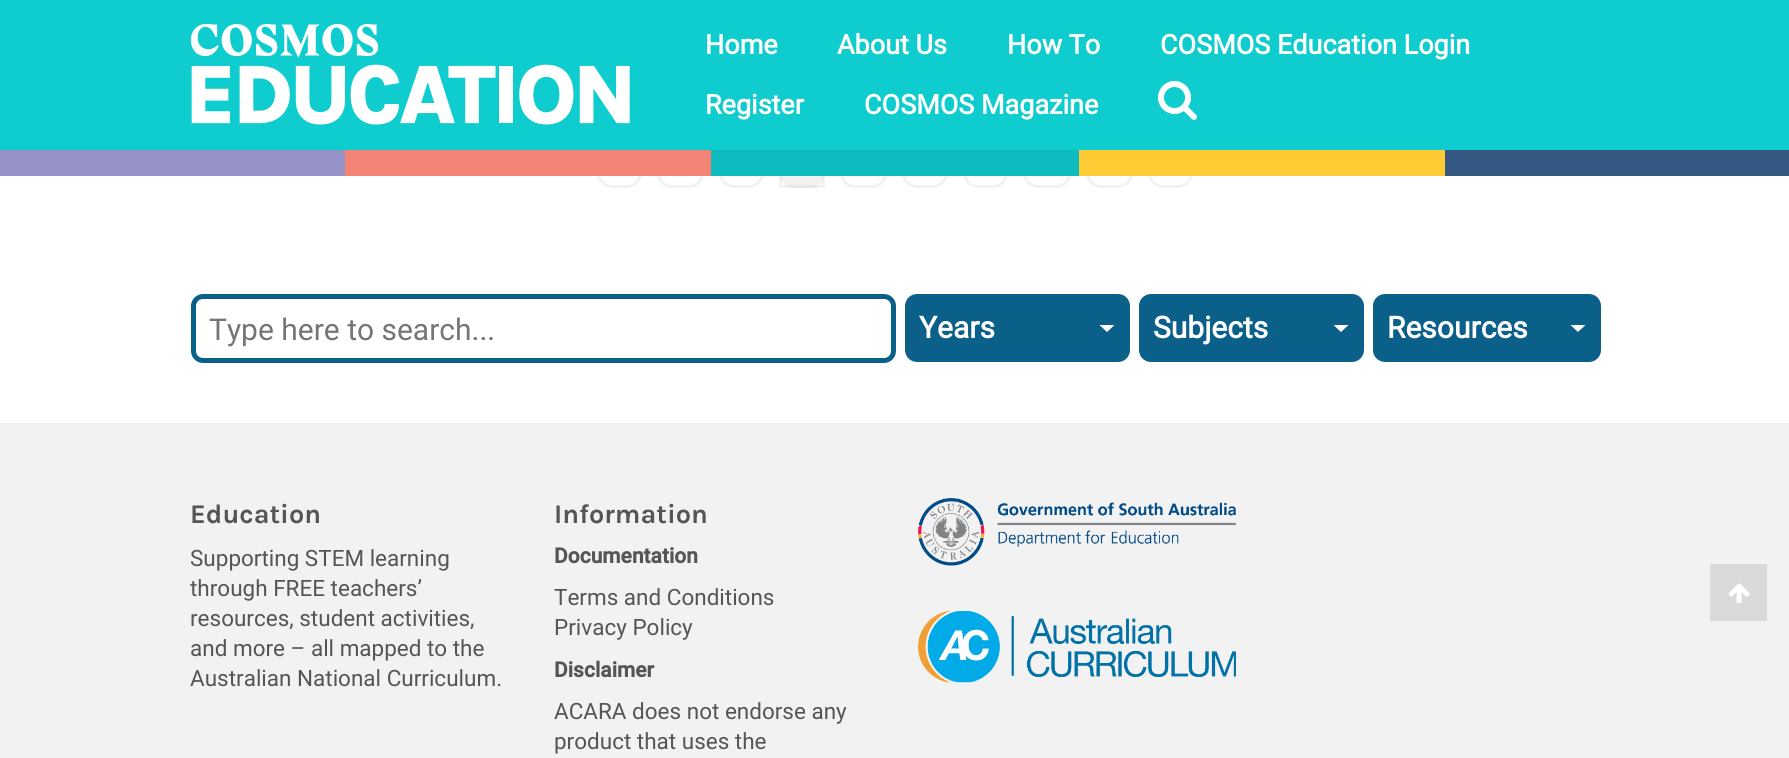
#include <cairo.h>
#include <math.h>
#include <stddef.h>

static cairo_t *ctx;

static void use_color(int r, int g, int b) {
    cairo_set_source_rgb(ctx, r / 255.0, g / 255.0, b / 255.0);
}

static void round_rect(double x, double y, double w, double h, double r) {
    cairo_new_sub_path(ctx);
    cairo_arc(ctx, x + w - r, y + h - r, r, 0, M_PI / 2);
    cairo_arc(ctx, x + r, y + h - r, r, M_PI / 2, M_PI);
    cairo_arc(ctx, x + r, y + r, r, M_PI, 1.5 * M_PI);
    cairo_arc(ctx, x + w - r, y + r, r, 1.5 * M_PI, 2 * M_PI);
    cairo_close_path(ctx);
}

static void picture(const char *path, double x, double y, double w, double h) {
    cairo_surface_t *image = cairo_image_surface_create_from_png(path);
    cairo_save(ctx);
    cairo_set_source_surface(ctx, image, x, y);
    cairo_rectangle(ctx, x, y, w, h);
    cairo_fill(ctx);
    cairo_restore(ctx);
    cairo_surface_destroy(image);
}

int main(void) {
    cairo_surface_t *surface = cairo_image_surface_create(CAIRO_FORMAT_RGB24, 1789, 758);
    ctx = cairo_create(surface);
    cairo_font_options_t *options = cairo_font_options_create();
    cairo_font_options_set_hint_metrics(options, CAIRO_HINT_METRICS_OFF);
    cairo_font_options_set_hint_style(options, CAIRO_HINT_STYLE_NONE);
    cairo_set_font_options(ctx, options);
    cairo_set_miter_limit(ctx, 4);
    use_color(255, 255, 255);
    cairo_paint(ctx);
    round_rect(598.5, 141.5, 42, 45, 13.5);
    use_color(242, 242, 242);
    cairo_set_line_width(ctx, 3);
    cairo_stroke(ctx);
    round_rect(658.5, 141.5, 44, 45, 13.5);
    cairo_stroke(ctx);
    round_rect(720.5, 141.5, 42, 45, 13.5);
    cairo_stroke(ctx);
    round_rect(779, 140, 46, 48, 15);
    cairo_fill(ctx);
    cairo_rectangle(ctx, 780.5, 141.5, 43, 45);
    cairo_set_source_rgba(ctx, 0, 0, 0, 0.05);
    cairo_stroke(ctx);
    round_rect(841.5, 141.5, 44, 45, 13.5);
    use_color(242, 242, 242);
    cairo_stroke(ctx);
    round_rect(903.5, 141.5, 43, 45, 13.5);
    cairo_stroke(ctx);
    round_rect(964.5, 141.5, 42, 45, 13.5);
    cairo_stroke(ctx);
    round_rect(1024.5, 141.5, 45, 45, 13.5);
    cairo_stroke(ctx);
    round_rect(1087.5, 141.5, 44, 45, 13.5);
    cairo_stroke(ctx);
    round_rect(1149.5, 141.5, 42, 45, 13.5);
    cairo_stroke(ctx);
    use_color(15, 204, 206);
    cairo_rectangle(ctx, 0, 0, 1789, 150);
    cairo_fill(ctx);
    picture("img1.png", 191, 24, 439, 101);
    cairo_select_font_face(ctx, "Roboto", CAIRO_FONT_SLANT_NORMAL, CAIRO_FONT_WEIGHT_BOLD);
    cairo_set_font_size(ctx, 27);
    use_color(255, 255, 255);
    cairo_move_to(ctx, 705, 54);
    cairo_show_text(ctx, "Home");
    cairo_move_to(ctx, 837, 54);
    cairo_show_text(ctx, "About Us");
    cairo_move_to(ctx, 1007, 54);
    cairo_show_text(ctx, "How To");
    cairo_move_to(ctx, 1160, 54);
    cairo_show_text(ctx, "COSMOS Education Login");
    cairo_move_to(ctx, 705, 114);
    cairo_show_text(ctx, "Register");
    cairo_move_to(ctx, 864, 114);
    cairo_show_text(ctx, "COSMOS Magazine");
    picture("img2.png", 1158, 81, 39, 39);
    use_color(149, 146, 200);
    cairo_rectangle(ctx, 0, 150, 345, 26);
    cairo_fill(ctx);
    use_color(243, 131, 117);
    cairo_rectangle(ctx, 345, 150, 366, 26);
    cairo_fill(ctx);
    use_color(14, 187, 190);
    cairo_rectangle(ctx, 711, 150, 368, 26);
    cairo_fill(ctx);
    use_color(254, 203, 52);
    cairo_rectangle(ctx, 1079, 150, 366, 26);
    cairo_fill(ctx);
    use_color(53, 88, 130);
    cairo_rectangle(ctx, 1445, 150, 344, 26);
    cairo_fill(ctx);
    round_rect(193.5, 296.5, 700, 64, 9.5);
    use_color(11, 96, 138);
    cairo_set_line_width(ctx, 5);
    cairo_stroke(ctx);
    cairo_select_font_face(ctx, "Roboto", CAIRO_FONT_SLANT_NORMAL, CAIRO_FONT_WEIGHT_NORMAL);
    cairo_set_font_size(ctx, 30);
    use_color(117, 117, 117);
    cairo_move_to(ctx, 209, 340);
    cairo_show_text(ctx, "Type here to search...");
    use_color(11, 96, 138);
    round_rect(905, 294, 225, 68, 12);
    cairo_fill(ctx);
    cairo_select_font_face(ctx, "Roboto", CAIRO_FONT_SLANT_NORMAL, CAIRO_FONT_WEIGHT_BOLD);
    use_color(255, 255, 255);
    cairo_move_to(ctx, 919, 338);
    cairo_show_text(ctx, "Years");
    cairo_new_path(ctx);
    cairo_move_to(ctx, 1099.5, 325);
    cairo_line_to(ctx, 1114.5, 325);
    cairo_line_to(ctx, 1107, 332);
    cairo_close_path(ctx);
    cairo_fill(ctx);
    use_color(11, 96, 138);
    round_rect(1139, 294, 225, 68, 12);
    cairo_fill(ctx);
    use_color(255, 255, 255);
    cairo_move_to(ctx, 1153, 338);
    cairo_show_text(ctx, "Subjects");
    cairo_new_path(ctx);
    cairo_move_to(ctx, 1333.5, 325);
    cairo_line_to(ctx, 1348.5, 325);
    cairo_line_to(ctx, 1341, 332);
    cairo_close_path(ctx);
    cairo_fill(ctx);
    use_color(11, 96, 138);
    round_rect(1373, 294, 228, 68, 12);
    cairo_fill(ctx);
    use_color(255, 255, 255);
    cairo_move_to(ctx, 1387, 338);
    cairo_show_text(ctx, "Resources");
    cairo_new_path(ctx);
    cairo_move_to(ctx, 1570.5, 325);
    cairo_line_to(ctx, 1585.5, 325);
    cairo_line_to(ctx, 1578, 332);
    cairo_close_path(ctx);
    cairo_fill(ctx);
    use_color(242, 242, 242);
    cairo_rectangle(ctx, 0, 423, 1789, 335);
    cairo_fill(ctx);
    cairo_select_font_face(ctx, "Karla", CAIRO_FONT_SLANT_NORMAL, CAIRO_FONT_WEIGHT_BOLD);
    cairo_set_font_size(ctx, 27);
    use_color(85, 85, 85);
    cairo_move_to(ctx, 190, 523);
    cairo_show_text(ctx, "Education");
    cairo_select_font_face(ctx, "Roboto", CAIRO_FONT_SLANT_NORMAL, CAIRO_FONT_WEIGHT_NORMAL);
    cairo_set_font_size(ctx, 22.5);
    cairo_move_to(ctx, 190, 566);
    cairo_show_text(ctx, "Supporting STEM learning");
    cairo_move_to(ctx, 190, 596);
    cairo_show_text(ctx, "through FREE teachers’");
    cairo_move_to(ctx, 190, 626);
    cairo_show_text(ctx, "resources, student activities,");
    cairo_move_to(ctx, 190, 656);
    cairo_show_text(ctx, "and more – all mapped to the");
    cairo_move_to(ctx, 190, 686);
    cairo_show_text(ctx, "Australian National Curriculum.");
    cairo_select_font_face(ctx, "Karla", CAIRO_FONT_SLANT_NORMAL, CAIRO_FONT_WEIGHT_BOLD);
    cairo_set_font_size(ctx, 27);
    cairo_move_to(ctx, 554, 523);
    cairo_show_text(ctx, "Information");
    cairo_select_font_face(ctx, "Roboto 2", CAIRO_FONT_SLANT_NORMAL, CAIRO_FONT_WEIGHT_BOLD);
    cairo_set_font_size(ctx, 21);
    cairo_move_to(ctx, 554, 563);
    cairo_show_text(ctx, "Documentation");
    cairo_select_font_face(ctx, "Roboto", CAIRO_FONT_SLANT_NORMAL, CAIRO_FONT_WEIGHT_NORMAL);
    cairo_set_font_size(ctx, 22.5);
    cairo_move_to(ctx, 554, 605);
    cairo_show_text(ctx, "Terms and Conditions");
    cairo_move_to(ctx, 554, 635);
    cairo_show_text(ctx, "Privacy Policy");
    cairo_select_font_face(ctx, "Roboto 2", CAIRO_FONT_SLANT_NORMAL, CAIRO_FONT_WEIGHT_BOLD);
    cairo_set_font_size(ctx, 21);
    cairo_move_to(ctx, 554, 677);
    cairo_show_text(ctx, "Disclaimer");
    cairo_select_font_face(ctx, "Roboto", CAIRO_FONT_SLANT_NORMAL, CAIRO_FONT_WEIGHT_NORMAL);
    cairo_set_font_size(ctx, 22.5);
    cairo_move_to(ctx, 554, 719);
    cairo_show_text(ctx, "ACARA does not endorse any");
    cairo_move_to(ctx, 554, 749);
    cairo_show_text(ctx, "product that uses the");
    picture("img3.png", 918, 498, 318, 68);
    picture("img4.png", 918, 611, 318, 72);
    use_color(218, 218, 218);
    cairo_rectangle(ctx, 1710, 564, 57, 57);
    cairo_fill(ctx);
    picture("img5.png", 1728, 583, 22, 21);
    cairo_surface_write_to_png(surface, "result.png");
    cairo_font_options_destroy(options);
    cairo_destroy(ctx);
    cairo_surface_destroy(surface);
    return 0;
}
